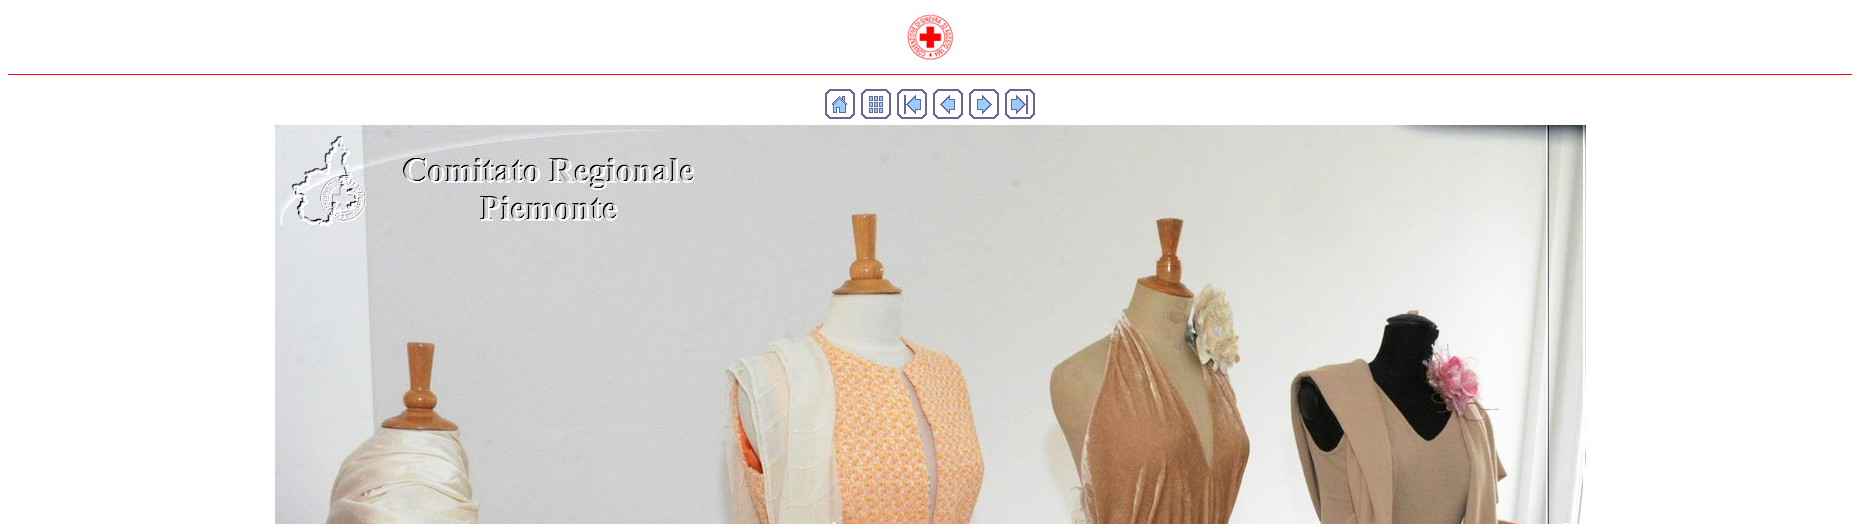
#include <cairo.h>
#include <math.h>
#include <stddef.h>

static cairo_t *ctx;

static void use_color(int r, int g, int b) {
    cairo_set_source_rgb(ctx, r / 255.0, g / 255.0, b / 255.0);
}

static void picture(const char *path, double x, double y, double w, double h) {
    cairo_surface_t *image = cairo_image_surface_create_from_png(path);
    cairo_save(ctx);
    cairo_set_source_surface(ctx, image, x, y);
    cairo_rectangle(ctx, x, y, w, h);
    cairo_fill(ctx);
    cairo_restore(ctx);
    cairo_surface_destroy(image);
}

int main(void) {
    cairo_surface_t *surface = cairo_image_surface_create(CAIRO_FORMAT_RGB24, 1860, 524);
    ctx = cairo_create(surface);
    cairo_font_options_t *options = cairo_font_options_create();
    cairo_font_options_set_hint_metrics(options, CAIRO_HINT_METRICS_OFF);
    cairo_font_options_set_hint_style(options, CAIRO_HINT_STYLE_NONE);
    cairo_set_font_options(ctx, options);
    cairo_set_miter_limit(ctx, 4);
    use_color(255, 255, 255);
    cairo_paint(ctx);
    picture("img1.png", 907, 14, 47, 46);
    use_color(255, 0, 0);
    cairo_rectangle(ctx, 8, 74, 1844, 1);
    cairo_fill(ctx);
    picture("img2.png", 825, 89, 30, 30);
    picture("img3.png", 861, 89, 30, 30);
    picture("img4.png", 897, 89, 30, 30);
    picture("img5.png", 933, 89, 30, 30);
    picture("img6.png", 969, 89, 30, 30);
    picture("img7.png", 1005, 89, 30, 30);
    picture("img8.png", 275, 125, 1311, 399);
    cairo_surface_write_to_png(surface, "result.png");
    cairo_font_options_destroy(options);
    cairo_destroy(ctx);
    cairo_surface_destroy(surface);
    return 0;
}
